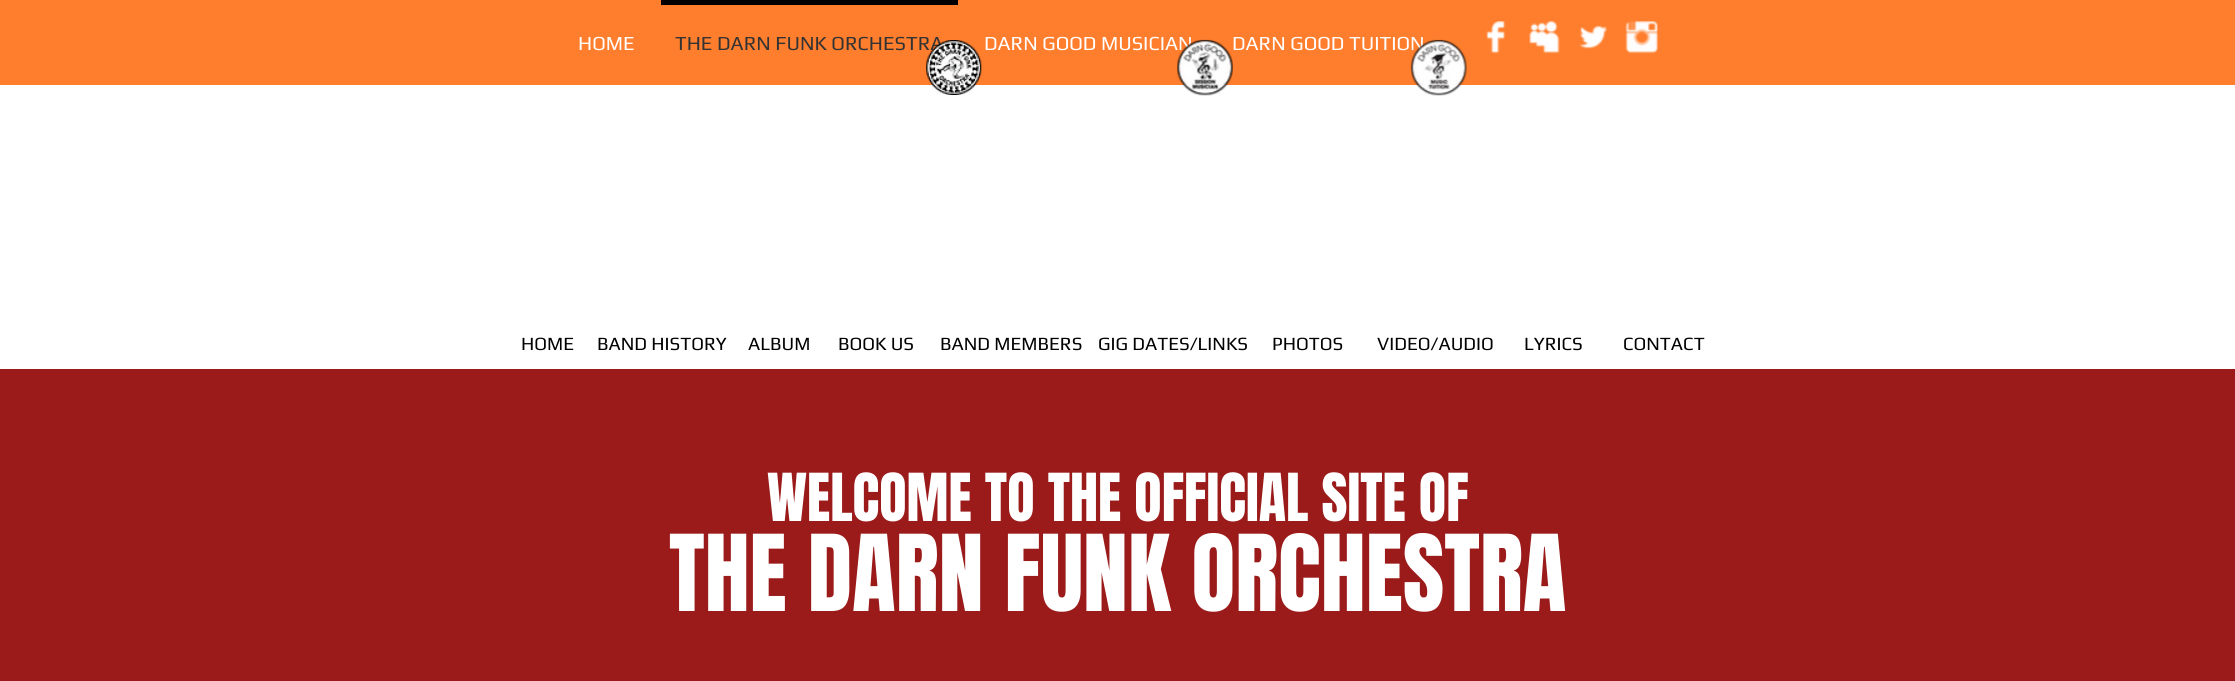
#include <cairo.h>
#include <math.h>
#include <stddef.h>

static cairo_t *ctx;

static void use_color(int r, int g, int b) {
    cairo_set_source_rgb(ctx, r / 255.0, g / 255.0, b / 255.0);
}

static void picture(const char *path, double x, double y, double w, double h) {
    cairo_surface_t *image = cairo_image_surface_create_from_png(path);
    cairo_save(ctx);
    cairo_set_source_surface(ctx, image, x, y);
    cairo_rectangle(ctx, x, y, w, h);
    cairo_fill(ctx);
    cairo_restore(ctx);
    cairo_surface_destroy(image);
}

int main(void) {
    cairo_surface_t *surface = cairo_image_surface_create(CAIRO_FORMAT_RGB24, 2235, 681);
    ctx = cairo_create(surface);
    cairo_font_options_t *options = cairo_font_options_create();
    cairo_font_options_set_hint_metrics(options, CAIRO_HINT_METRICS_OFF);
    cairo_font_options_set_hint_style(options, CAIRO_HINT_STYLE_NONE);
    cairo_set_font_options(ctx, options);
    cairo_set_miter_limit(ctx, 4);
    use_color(155, 27, 27);
    cairo_paint(ctx);
    use_color(255, 126, 45);
    cairo_rectangle(ctx, 0, 0, 2235, 85);
    cairo_fill(ctx);
    cairo_select_font_face(ctx, "Play", CAIRO_FONT_SLANT_NORMAL, CAIRO_FONT_WEIGHT_NORMAL);
    cairo_set_font_size(ctx, 20);
    use_color(255, 255, 255);
    cairo_move_to(ctx, 578, 50);
    cairo_show_text(ctx, "HOME");
    use_color(0, 0, 0);
    cairo_rectangle(ctx, 661, 0, 297, 5);
    cairo_fill(ctx);
    use_color(51, 51, 51);
    cairo_move_to(ctx, 675, 50);
    cairo_show_text(ctx, "THE DARN FUNK ORCHESTRA");
    use_color(255, 255, 255);
    cairo_move_to(ctx, 984, 50);
    cairo_show_text(ctx, "DARN GOOD MUSICIAN");
    cairo_move_to(ctx, 1232, 50);
    cairo_show_text(ctx, "DARN GOOD TUITION");
    picture("img1.png", 1486, 21, 20, 33);
    picture("img2.png", 1529, 21, 31, 33);
    picture("img3.png", 1579, 25, 29, 24);
    picture("img4.png", 1625, 21, 33, 33);
    cairo_rectangle(ctx, 0, 85, 2235, 284);
    cairo_fill(ctx);
    picture("img5.png", 926, 40, 56, 55);
    picture("img6.png", 1177, 39, 56, 57);
    picture("img7.png", 1410, 39, 57, 57);
    cairo_set_font_size(ctx, 18.75);
    use_color(0, 0, 0);
    cairo_move_to(ctx, 521, 350);
    cairo_show_text(ctx, "HOME");
    cairo_move_to(ctx, 597, 350);
    cairo_show_text(ctx, "BAND HISTORY");
    cairo_move_to(ctx, 748, 350);
    cairo_show_text(ctx, "ALBUM");
    cairo_move_to(ctx, 838, 350);
    cairo_show_text(ctx, "BOOK US");
    cairo_move_to(ctx, 940, 350);
    cairo_show_text(ctx, "BAND MEMBERS");
    cairo_move_to(ctx, 1098, 350);
    cairo_show_text(ctx, "GIG DATES/LINKS");
    cairo_move_to(ctx, 1272, 350);
    cairo_show_text(ctx, "PHOTOS");
    cairo_move_to(ctx, 1377, 350);
    cairo_show_text(ctx, "VIDEO/AUDIO");
    cairo_move_to(ctx, 1524, 350);
    cairo_show_text(ctx, "LYRICS");
    cairo_move_to(ctx, 1623, 350);
    cairo_show_text(ctx, "CONTACT");
    cairo_select_font_face(ctx, "Anton", CAIRO_FONT_SLANT_NORMAL, CAIRO_FONT_WEIGHT_NORMAL);
    cairo_set_font_size(ctx, 56.25);
    use_color(255, 255, 255);
    cairo_move_to(ctx, 767, 521);
    cairo_show_text(ctx, "WELCOME TO THE OFFICIAL SITE OF");
    cairo_set_font_size(ctx, 90);
    cairo_move_to(ctx, 669, 611);
    cairo_show_text(ctx, "THE DARN FUNK ORCHESTRA");
    cairo_surface_write_to_png(surface, "result.png");
    cairo_font_options_destroy(options);
    cairo_destroy(ctx);
    cairo_surface_destroy(surface);
    return 0;
}
